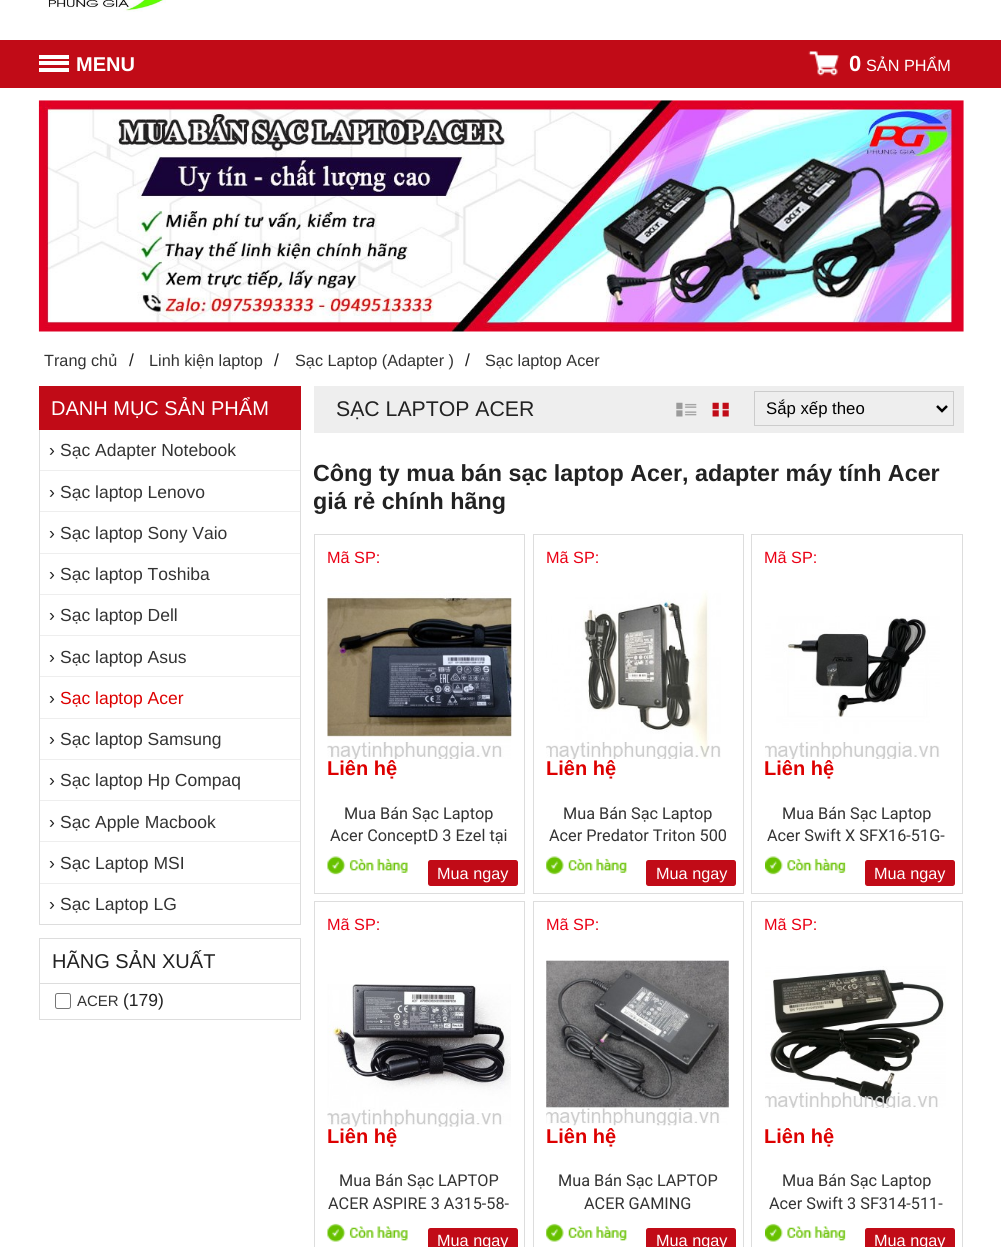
#include <cairo.h>
#include <math.h>
#include <stddef.h>

static cairo_t *ctx;

static void use_color(int r, int g, int b) {
    cairo_set_source_rgb(ctx, r / 255.0, g / 255.0, b / 255.0);
}

static void round_rect(double x, double y, double w, double h, double r) {
    cairo_new_sub_path(ctx);
    cairo_arc(ctx, x + w - r, y + h - r, r, 0, M_PI / 2);
    cairo_arc(ctx, x + r, y + h - r, r, M_PI / 2, M_PI);
    cairo_arc(ctx, x + r, y + r, r, M_PI, 1.5 * M_PI);
    cairo_arc(ctx, x + w - r, y + r, r, 1.5 * M_PI, 2 * M_PI);
    cairo_close_path(ctx);
}

static void picture(const char *path, double x, double y, double w, double h) {
    cairo_surface_t *image = cairo_image_surface_create_from_png(path);
    cairo_save(ctx);
    cairo_set_source_surface(ctx, image, x, y);
    cairo_rectangle(ctx, x, y, w, h);
    cairo_fill(ctx);
    cairo_restore(ctx);
    cairo_surface_destroy(image);
}

int main(void) {
    cairo_surface_t *surface = cairo_image_surface_create(CAIRO_FORMAT_RGB24, 1001, 1247);
    ctx = cairo_create(surface);
    cairo_font_options_t *options = cairo_font_options_create();
    cairo_font_options_set_hint_metrics(options, CAIRO_HINT_METRICS_OFF);
    cairo_font_options_set_hint_style(options, CAIRO_HINT_STYLE_NONE);
    cairo_set_font_options(ctx, options);
    cairo_set_miter_limit(ctx, 4);
    use_color(255, 255, 255);
    cairo_paint(ctx);
    picture("img1.png", 48, 0, 118, 12);
    use_color(193, 11, 23);
    cairo_rectangle(ctx, 0, 40, 1001, 48);
    cairo_fill(ctx);
    use_color(255, 255, 255);
    cairo_rectangle(ctx, 39, 55, 30, 4);
    cairo_fill(ctx);
    cairo_select_font_face(ctx, "Liberation Sans", CAIRO_FONT_SLANT_NORMAL, CAIRO_FONT_WEIGHT_BOLD);
    cairo_set_font_size(ctx, 20);
    cairo_move_to(ctx, 76, 71);
    cairo_show_text(ctx, "MENU");
    cairo_rectangle(ctx, 39, 61, 30, 4);
    cairo_fill(ctx);
    cairo_rectangle(ctx, 39, 68, 30, 4);
    cairo_fill(ctx);
    picture("img2.png", 808, 51, 31, 25);
    cairo_set_font_size(ctx, 22);
    cairo_move_to(ctx, 849, 71);
    cairo_show_text(ctx, "0");
    cairo_select_font_face(ctx, "Liberation Sans", CAIRO_FONT_SLANT_NORMAL, CAIRO_FONT_WEIGHT_NORMAL);
    cairo_set_font_size(ctx, 16.25);
    cairo_move_to(ctx, 866, 71);
    cairo_show_text(ctx, "SẢN PHẨM");
    picture("img3.png", 38, 100, 926, 232);
    use_color(51, 51, 51);
    cairo_move_to(ctx, 44, 366);
    cairo_show_text(ctx, "Trang chủ");
    cairo_set_font_size(ctx, 17.5);
    use_color(34, 34, 34);
    cairo_move_to(ctx, 129, 366);
    cairo_show_text(ctx, "/");
    cairo_set_font_size(ctx, 16.25);
    use_color(51, 51, 51);
    cairo_move_to(ctx, 149, 366);
    cairo_show_text(ctx, "Linh kiện laptop");
    cairo_set_font_size(ctx, 17.5);
    use_color(34, 34, 34);
    cairo_move_to(ctx, 274, 366);
    cairo_show_text(ctx, "/");
    cairo_set_font_size(ctx, 16.25);
    use_color(51, 51, 51);
    cairo_move_to(ctx, 295, 366);
    cairo_show_text(ctx, "Sạc Laptop (Adapter )");
    cairo_set_font_size(ctx, 17.5);
    use_color(34, 34, 34);
    cairo_move_to(ctx, 465, 366);
    cairo_show_text(ctx, "/");
    cairo_set_font_size(ctx, 16.25);
    use_color(51, 51, 51);
    cairo_move_to(ctx, 485, 366);
    cairo_show_text(ctx, "Sạc laptop Acer");
    cairo_rectangle(ctx, 39.5, 429.5, 261, 495);
    use_color(221, 221, 221);
    cairo_set_line_width(ctx, 1);
    cairo_stroke(ctx);
    use_color(193, 11, 23);
    cairo_rectangle(ctx, 39, 386, 262, 44);
    cairo_fill(ctx);
    cairo_set_font_size(ctx, 20);
    use_color(255, 255, 255);
    cairo_move_to(ctx, 51, 415);
    cairo_show_text(ctx, "DANH MỤC SẢN PHẨM");
    use_color(238, 238, 238);
    cairo_rectangle(ctx, 40, 470, 260, 1);
    cairo_fill(ctx);
    cairo_set_font_size(ctx, 17.5);
    use_color(34, 34, 34);
    cairo_move_to(ctx, 49, 456);
    cairo_show_text(ctx, "›");
    use_color(51, 51, 51);
    cairo_move_to(ctx, 60, 456);
    cairo_show_text(ctx, "Sạc Adapter Notebook");
    use_color(238, 238, 238);
    cairo_rectangle(ctx, 40, 511, 260, 1);
    cairo_fill(ctx);
    use_color(34, 34, 34);
    cairo_move_to(ctx, 49, 498);
    cairo_show_text(ctx, "›");
    use_color(51, 51, 51);
    cairo_move_to(ctx, 60, 498);
    cairo_show_text(ctx, "Sạc laptop Lenovo");
    use_color(238, 238, 238);
    cairo_rectangle(ctx, 40, 553, 260, 1);
    cairo_fill(ctx);
    use_color(34, 34, 34);
    cairo_move_to(ctx, 49, 539);
    cairo_show_text(ctx, "›");
    use_color(51, 51, 51);
    cairo_move_to(ctx, 60, 539);
    cairo_show_text(ctx, "Sạc laptop Sony Vaio");
    use_color(238, 238, 238);
    cairo_rectangle(ctx, 40, 594, 260, 1);
    cairo_fill(ctx);
    use_color(34, 34, 34);
    cairo_move_to(ctx, 49, 580);
    cairo_show_text(ctx, "›");
    use_color(51, 51, 51);
    cairo_move_to(ctx, 60, 580);
    cairo_show_text(ctx, "Sạc laptop Toshiba");
    use_color(238, 238, 238);
    cairo_rectangle(ctx, 40, 635, 260, 1);
    cairo_fill(ctx);
    use_color(34, 34, 34);
    cairo_move_to(ctx, 49, 621);
    cairo_show_text(ctx, "›");
    use_color(51, 51, 51);
    cairo_move_to(ctx, 60, 621);
    cairo_show_text(ctx, "Sạc laptop Dell");
    use_color(238, 238, 238);
    cairo_rectangle(ctx, 40, 676, 260, 1);
    cairo_fill(ctx);
    use_color(34, 34, 34);
    cairo_move_to(ctx, 49, 663);
    cairo_show_text(ctx, "›");
    use_color(51, 51, 51);
    cairo_move_to(ctx, 60, 663);
    cairo_show_text(ctx, "Sạc laptop Asus");
    use_color(238, 238, 238);
    cairo_rectangle(ctx, 40, 718, 260, 1);
    cairo_fill(ctx);
    use_color(34, 34, 34);
    cairo_move_to(ctx, 49, 704);
    cairo_show_text(ctx, "›");
    use_color(221, 0, 0);
    cairo_move_to(ctx, 60, 704);
    cairo_show_text(ctx, "Sạc laptop Acer");
    use_color(238, 238, 238);
    cairo_rectangle(ctx, 40, 759, 260, 1);
    cairo_fill(ctx);
    use_color(34, 34, 34);
    cairo_move_to(ctx, 49, 745);
    cairo_show_text(ctx, "›");
    use_color(51, 51, 51);
    cairo_move_to(ctx, 60, 745);
    cairo_show_text(ctx, "Sạc laptop Samsung");
    use_color(238, 238, 238);
    cairo_rectangle(ctx, 40, 800, 260, 1);
    cairo_fill(ctx);
    use_color(34, 34, 34);
    cairo_move_to(ctx, 49, 786);
    cairo_show_text(ctx, "›");
    use_color(51, 51, 51);
    cairo_move_to(ctx, 60, 786);
    cairo_show_text(ctx, "Sạc laptop Hp Compaq");
    use_color(238, 238, 238);
    cairo_rectangle(ctx, 40, 841, 260, 1);
    cairo_fill(ctx);
    use_color(34, 34, 34);
    cairo_move_to(ctx, 49, 828);
    cairo_show_text(ctx, "›");
    use_color(51, 51, 51);
    cairo_move_to(ctx, 60, 828);
    cairo_show_text(ctx, "Sạc Apple Macbook");
    use_color(238, 238, 238);
    cairo_rectangle(ctx, 40, 883, 260, 1);
    cairo_fill(ctx);
    use_color(34, 34, 34);
    cairo_move_to(ctx, 49, 869);
    cairo_show_text(ctx, "›");
    use_color(51, 51, 51);
    cairo_move_to(ctx, 60, 869);
    cairo_show_text(ctx, "Sạc Laptop MSI");
    use_color(34, 34, 34);
    cairo_move_to(ctx, 49, 910);
    cairo_show_text(ctx, "›");
    use_color(51, 51, 51);
    cairo_move_to(ctx, 60, 910);
    cairo_show_text(ctx, "Sạc Laptop LG");
    cairo_rectangle(ctx, 39.5, 983.5, 261, 36);
    use_color(221, 221, 221);
    cairo_stroke(ctx);
    cairo_rectangle(ctx, 39.5, 938.5, 261, 45);
    cairo_stroke(ctx);
    cairo_set_font_size(ctx, 20);
    use_color(34, 34, 34);
    cairo_move_to(ctx, 52, 968);
    cairo_show_text(ctx, "HÃNG SẢN XUẤT");
    round_rect(55.5, 993.5, 15, 15, 2);
    use_color(118, 118, 118);
    cairo_stroke(ctx);
    cairo_set_font_size(ctx, 15);
    use_color(51, 51, 51);
    cairo_move_to(ctx, 77, 1006);
    cairo_show_text(ctx, "ACER");
    cairo_set_font_size(ctx, 17.5);
    use_color(34, 34, 34);
    cairo_move_to(ctx, 123, 1006);
    cairo_show_text(ctx, "(179)");
    use_color(238, 238, 238);
    cairo_rectangle(ctx, 314, 386, 650, 47);
    cairo_fill(ctx);
    cairo_set_font_size(ctx, 21.25);
    use_color(34, 34, 34);
    cairo_move_to(ctx, 336, 416);
    cairo_show_text(ctx, "SẠC LAPTOP ACER");
    picture("img4.png", 676, 402, 21, 15);
    picture("img5.png", 712, 402, 17, 15);
    cairo_rectangle(ctx, 754.5, 391.5, 199, 34);
    use_color(204, 204, 204);
    cairo_stroke(ctx);
    cairo_new_path(ctx);
    cairo_move_to(ctx, 937, 406);
    cairo_line_to(ctx, 942, 411);
    cairo_line_to(ctx, 947, 406);
    use_color(0, 0, 0);
    cairo_set_line_width(ctx, 2.5);
    cairo_stroke(ctx);
    cairo_set_font_size(ctx, 16.75);
    cairo_move_to(ctx, 766, 414);
    cairo_show_text(ctx, "Sắp xếp theo");
    cairo_select_font_face(ctx, "Liberation Sans", CAIRO_FONT_SLANT_NORMAL, CAIRO_FONT_WEIGHT_BOLD);
    cairo_set_font_size(ctx, 23.3);
    use_color(34, 34, 34);
    cairo_move_to(ctx, 313, 481);
    cairo_show_text(ctx, "Công ty mua bán sạc laptop Acer, adapter máy tính Acer");
    cairo_move_to(ctx, 313, 509);
    cairo_show_text(ctx, "giá rẻ chính hãng");
    cairo_rectangle(ctx, 314.5, 534.5, 210, 359);
    use_color(221, 221, 221);
    cairo_set_line_width(ctx, 1);
    cairo_stroke(ctx);
    cairo_select_font_face(ctx, "Liberation Sans", CAIRO_FONT_SLANT_NORMAL, CAIRO_FONT_WEIGHT_NORMAL);
    cairo_set_font_size(ctx, 16.25);
    use_color(234, 0, 20);
    cairo_move_to(ctx, 327, 563);
    cairo_show_text(ctx, "Mã SP:");
    picture("img6.png", 327, 590, 185, 169);
    cairo_select_font_face(ctx, "Liberation Sans", CAIRO_FONT_SLANT_NORMAL, CAIRO_FONT_WEIGHT_BOLD);
    cairo_set_font_size(ctx, 20);
    use_color(221, 0, 0);
    cairo_move_to(ctx, 327, 775);
    cairo_show_text(ctx, "Liên hệ");
    cairo_select_font_face(ctx, "Roboto", CAIRO_FONT_SLANT_NORMAL, CAIRO_FONT_WEIGHT_NORMAL);
    cairo_set_font_size(ctx, 16.25);
    use_color(51, 51, 51);
    cairo_move_to(ctx, 344, 819);
    cairo_show_text(ctx, "Mua Bán Sạc Laptop");
    cairo_move_to(ctx, 330, 841);
    cairo_show_text(ctx, "Acer ConceptD 3 Ezel tại");
    picture("img7.png", 327, 856, 81, 19);
    use_color(193, 11, 23);
    round_rect(428, 860, 90, 26, 2.5);
    cairo_fill(ctx);
    cairo_select_font_face(ctx, "Liberation Sans", CAIRO_FONT_SLANT_NORMAL, CAIRO_FONT_WEIGHT_NORMAL);
    use_color(255, 255, 255);
    cairo_move_to(ctx, 437, 879);
    cairo_show_text(ctx, "Mua ngay");
    cairo_rectangle(ctx, 533.5, 534.5, 210, 359);
    use_color(221, 221, 221);
    cairo_stroke(ctx);
    use_color(234, 0, 20);
    cairo_move_to(ctx, 546, 563);
    cairo_show_text(ctx, "Mã SP:");
    picture("img8.png", 546, 590, 175, 169);
    cairo_select_font_face(ctx, "Liberation Sans", CAIRO_FONT_SLANT_NORMAL, CAIRO_FONT_WEIGHT_BOLD);
    cairo_set_font_size(ctx, 20);
    use_color(221, 0, 0);
    cairo_move_to(ctx, 546, 775);
    cairo_show_text(ctx, "Liên hệ");
    cairo_select_font_face(ctx, "Roboto", CAIRO_FONT_SLANT_NORMAL, CAIRO_FONT_WEIGHT_NORMAL);
    cairo_set_font_size(ctx, 16.25);
    use_color(51, 51, 51);
    cairo_move_to(ctx, 563, 819);
    cairo_show_text(ctx, "Mua Bán Sạc Laptop");
    cairo_move_to(ctx, 549, 841);
    cairo_show_text(ctx, "Acer Predator Triton 500");
    picture("img9.png", 546, 856, 81, 19);
    use_color(193, 11, 23);
    round_rect(646, 860, 90, 26, 2.5);
    cairo_fill(ctx);
    cairo_select_font_face(ctx, "Liberation Sans", CAIRO_FONT_SLANT_NORMAL, CAIRO_FONT_WEIGHT_NORMAL);
    use_color(255, 255, 255);
    cairo_move_to(ctx, 656, 879);
    cairo_show_text(ctx, "Mua ngay");
    cairo_rectangle(ctx, 751.5, 534.5, 211, 359);
    use_color(221, 221, 221);
    cairo_stroke(ctx);
    use_color(234, 0, 20);
    cairo_move_to(ctx, 764, 563);
    cairo_show_text(ctx, "Mã SP:");
    picture("img10.png", 765, 616, 175, 143);
    cairo_select_font_face(ctx, "Liberation Sans", CAIRO_FONT_SLANT_NORMAL, CAIRO_FONT_WEIGHT_BOLD);
    cairo_set_font_size(ctx, 20);
    use_color(221, 0, 0);
    cairo_move_to(ctx, 764, 775);
    cairo_show_text(ctx, "Liên hệ");
    cairo_select_font_face(ctx, "Roboto", CAIRO_FONT_SLANT_NORMAL, CAIRO_FONT_WEIGHT_NORMAL);
    cairo_set_font_size(ctx, 16.25);
    use_color(51, 51, 51);
    cairo_move_to(ctx, 782, 819);
    cairo_show_text(ctx, "Mua Bán Sạc Laptop");
    cairo_move_to(ctx, 767, 841);
    cairo_show_text(ctx, "Acer Swift X SFX16-51G-");
    picture("img11.png", 765, 856, 81, 19);
    use_color(193, 11, 23);
    round_rect(865, 860, 90, 26, 2.5);
    cairo_fill(ctx);
    cairo_select_font_face(ctx, "Liberation Sans", CAIRO_FONT_SLANT_NORMAL, CAIRO_FONT_WEIGHT_NORMAL);
    use_color(255, 255, 255);
    cairo_move_to(ctx, 874, 879);
    cairo_show_text(ctx, "Mua ngay");
    cairo_rectangle(ctx, 314.5, 901.5, 210, 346);
    use_color(221, 221, 221);
    cairo_stroke(ctx);
    use_color(234, 0, 20);
    cairo_move_to(ctx, 327, 930);
    cairo_show_text(ctx, "Mã SP:");
    picture("img12.png", 327, 984, 184, 143);
    cairo_select_font_face(ctx, "Liberation Sans", CAIRO_FONT_SLANT_NORMAL, CAIRO_FONT_WEIGHT_BOLD);
    cairo_set_font_size(ctx, 20);
    use_color(221, 0, 0);
    cairo_move_to(ctx, 327, 1143);
    cairo_show_text(ctx, "Liên hệ");
    cairo_select_font_face(ctx, "Roboto", CAIRO_FONT_SLANT_NORMAL, CAIRO_FONT_WEIGHT_NORMAL);
    cairo_set_font_size(ctx, 16.25);
    use_color(51, 51, 51);
    cairo_move_to(ctx, 339, 1186);
    cairo_show_text(ctx, "Mua Bán Sạc LAPTOP");
    cairo_move_to(ctx, 328, 1209);
    cairo_show_text(ctx, "ACER ASPIRE 3 A315-58-");
    picture("img13.png", 327, 1223, 81, 19);
    use_color(193, 11, 23);
    round_rect(428, 1228, 90, 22, 2.5);
    cairo_fill(ctx);
    cairo_select_font_face(ctx, "Liberation Sans", CAIRO_FONT_SLANT_NORMAL, CAIRO_FONT_WEIGHT_NORMAL);
    use_color(255, 255, 255);
    cairo_move_to(ctx, 437, 1246);
    cairo_show_text(ctx, "Mua ngay");
    cairo_rectangle(ctx, 533.5, 901.5, 210, 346);
    use_color(221, 221, 221);
    cairo_stroke(ctx);
    use_color(234, 0, 20);
    cairo_move_to(ctx, 546, 930);
    cairo_show_text(ctx, "Mã SP:");
    picture("img14.png", 546, 960, 183, 166);
    cairo_select_font_face(ctx, "Liberation Sans", CAIRO_FONT_SLANT_NORMAL, CAIRO_FONT_WEIGHT_BOLD);
    cairo_set_font_size(ctx, 20);
    use_color(221, 0, 0);
    cairo_move_to(ctx, 546, 1143);
    cairo_show_text(ctx, "Liên hệ");
    cairo_select_font_face(ctx, "Roboto", CAIRO_FONT_SLANT_NORMAL, CAIRO_FONT_WEIGHT_NORMAL);
    cairo_set_font_size(ctx, 16.25);
    use_color(51, 51, 51);
    cairo_move_to(ctx, 558, 1186);
    cairo_show_text(ctx, "Mua Bán Sạc LAPTOP");
    cairo_move_to(ctx, 584, 1209);
    cairo_show_text(ctx, "ACER GAMING");
    picture("img15.png", 546, 1223, 81, 19);
    use_color(193, 11, 23);
    round_rect(646, 1228, 90, 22, 2.5);
    cairo_fill(ctx);
    cairo_select_font_face(ctx, "Liberation Sans", CAIRO_FONT_SLANT_NORMAL, CAIRO_FONT_WEIGHT_NORMAL);
    use_color(255, 255, 255);
    cairo_move_to(ctx, 656, 1246);
    cairo_show_text(ctx, "Mua ngay");
    cairo_rectangle(ctx, 751.5, 901.5, 211, 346);
    use_color(221, 221, 221);
    cairo_stroke(ctx);
    use_color(234, 0, 20);
    cairo_move_to(ctx, 764, 930);
    cairo_show_text(ctx, "Mã SP:");
    picture("img16.png", 765, 966, 181, 142);
    cairo_select_font_face(ctx, "Liberation Sans", CAIRO_FONT_SLANT_NORMAL, CAIRO_FONT_WEIGHT_BOLD);
    cairo_set_font_size(ctx, 20);
    use_color(221, 0, 0);
    cairo_move_to(ctx, 764, 1143);
    cairo_show_text(ctx, "Liên hệ");
    cairo_select_font_face(ctx, "Roboto", CAIRO_FONT_SLANT_NORMAL, CAIRO_FONT_WEIGHT_NORMAL);
    cairo_set_font_size(ctx, 16.25);
    use_color(51, 51, 51);
    cairo_move_to(ctx, 782, 1186);
    cairo_show_text(ctx, "Mua Bán Sạc Laptop");
    cairo_move_to(ctx, 769, 1209);
    cairo_show_text(ctx, "Acer Swift 3 SF314-511-");
    picture("img17.png", 765, 1223, 81, 19);
    use_color(193, 11, 23);
    round_rect(865, 1228, 90, 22, 2.5);
    cairo_fill(ctx);
    cairo_select_font_face(ctx, "Liberation Sans", CAIRO_FONT_SLANT_NORMAL, CAIRO_FONT_WEIGHT_NORMAL);
    use_color(255, 255, 255);
    cairo_move_to(ctx, 874, 1246);
    cairo_show_text(ctx, "Mua ngay");
    cairo_surface_write_to_png(surface, "result.png");
    cairo_font_options_destroy(options);
    cairo_destroy(ctx);
    cairo_surface_destroy(surface);
    return 0;
}
